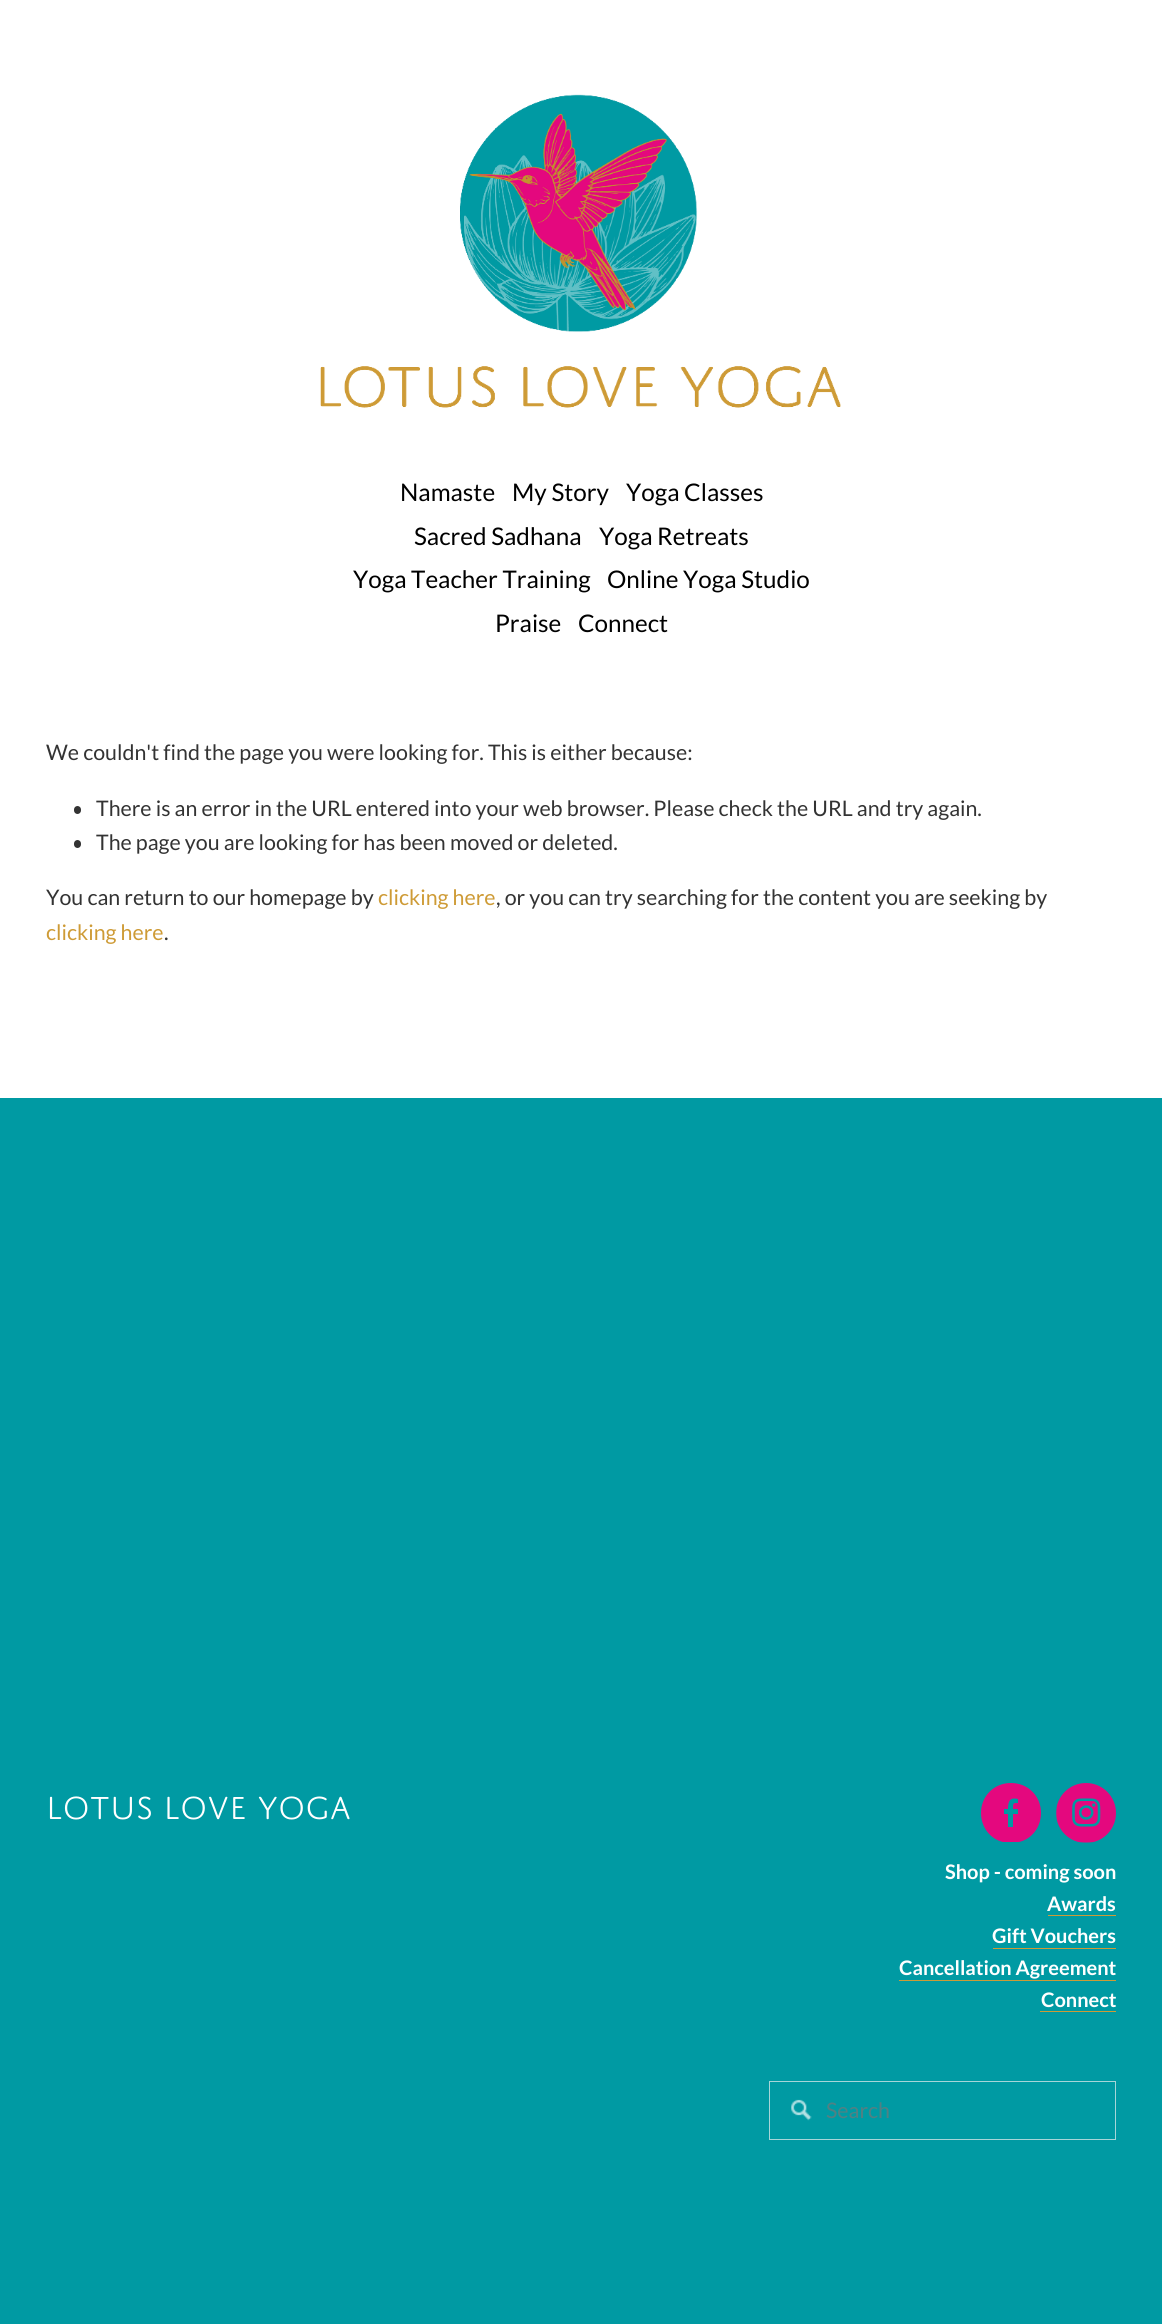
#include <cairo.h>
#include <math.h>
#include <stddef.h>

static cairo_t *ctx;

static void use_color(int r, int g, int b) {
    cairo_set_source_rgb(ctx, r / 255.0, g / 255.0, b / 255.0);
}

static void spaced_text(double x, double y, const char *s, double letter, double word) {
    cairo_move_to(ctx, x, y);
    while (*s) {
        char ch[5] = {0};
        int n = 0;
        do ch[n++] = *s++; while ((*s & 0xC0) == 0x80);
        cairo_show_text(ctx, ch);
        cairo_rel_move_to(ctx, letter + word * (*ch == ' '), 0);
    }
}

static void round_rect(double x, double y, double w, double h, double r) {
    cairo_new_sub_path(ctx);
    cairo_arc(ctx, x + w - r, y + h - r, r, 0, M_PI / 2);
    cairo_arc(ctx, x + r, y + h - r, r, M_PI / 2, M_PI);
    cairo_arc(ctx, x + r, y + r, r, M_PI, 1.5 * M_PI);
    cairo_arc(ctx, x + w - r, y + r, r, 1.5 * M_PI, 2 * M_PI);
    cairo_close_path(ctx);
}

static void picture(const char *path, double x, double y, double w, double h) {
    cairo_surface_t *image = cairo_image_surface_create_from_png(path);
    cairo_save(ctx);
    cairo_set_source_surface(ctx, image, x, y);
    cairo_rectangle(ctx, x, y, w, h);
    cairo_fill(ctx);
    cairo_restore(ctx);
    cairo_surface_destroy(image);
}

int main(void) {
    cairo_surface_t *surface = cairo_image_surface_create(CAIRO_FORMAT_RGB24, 1162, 2324);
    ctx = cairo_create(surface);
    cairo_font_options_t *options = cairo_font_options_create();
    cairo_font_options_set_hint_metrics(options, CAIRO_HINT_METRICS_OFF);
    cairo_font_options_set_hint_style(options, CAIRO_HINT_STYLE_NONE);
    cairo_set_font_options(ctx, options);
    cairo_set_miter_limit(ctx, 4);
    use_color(255, 255, 255);
    cairo_paint(ctx);
    picture("img1.png", 320, 94, 521, 314);
    cairo_select_font_face(ctx, "Lato", CAIRO_FONT_SLANT_NORMAL, CAIRO_FONT_WEIGHT_NORMAL);
    cairo_set_font_size(ctx, 24.25);
    use_color(0, 0, 0);
    cairo_move_to(ctx, 400, 501);
    cairo_show_text(ctx, "Namaste");
    cairo_move_to(ctx, 512, 501);
    cairo_show_text(ctx, "My Story");
    cairo_move_to(ctx, 626, 501);
    cairo_show_text(ctx, "Yoga Classes");
    cairo_move_to(ctx, 414, 545);
    cairo_show_text(ctx, "Sacred Sadhana");
    cairo_move_to(ctx, 599, 545);
    cairo_show_text(ctx, "Yoga Retreats");
    cairo_move_to(ctx, 353, 588);
    cairo_show_text(ctx, "Yoga Teacher Training");
    cairo_move_to(ctx, 607, 588);
    cairo_show_text(ctx, "Online Yoga Studio");
    cairo_move_to(ctx, 495, 632);
    cairo_show_text(ctx, "Praise");
    cairo_move_to(ctx, 578, 632);
    cairo_show_text(ctx, "Connect");
    cairo_set_font_size(ctx, 21.4);
    use_color(51, 51, 51);
    cairo_move_to(ctx, 46, 760);
    cairo_show_text(ctx, "We couldn't find the page you were looking for. This is either because:");
    round_rect(74, 806, 7, 8, 3.5);
    cairo_fill(ctx);
    cairo_move_to(ctx, 96, 816);
    cairo_show_text(ctx, "There is an error in the URL entered into your web browser. Please check the URL and try again.");
    round_rect(74, 840, 7, 8, 3.5);
    cairo_fill(ctx);
    cairo_move_to(ctx, 96, 850);
    cairo_show_text(ctx, "The page you are looking for has been moved or deleted.");
    cairo_move_to(ctx, 46, 905);
    cairo_show_text(ctx, "You can return to our homepage by");
    use_color(206, 155, 54);
    cairo_move_to(ctx, 378, 905);
    cairo_show_text(ctx, "clicking here");
    use_color(51, 51, 51);
    cairo_move_to(ctx, 496, 905);
    cairo_show_text(ctx, ", or you can try searching for the content you are seeking by");
    use_color(206, 155, 54);
    cairo_move_to(ctx, 46, 940);
    cairo_show_text(ctx, "clicking here");
    use_color(51, 51, 51);
    cairo_move_to(ctx, 164, 940);
    cairo_show_text(ctx, ".");
    use_color(0, 154, 163);
    cairo_rectangle(ctx, 0, 1098, 1162, 1226);
    cairo_fill(ctx);
    cairo_select_font_face(ctx, "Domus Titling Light", CAIRO_FONT_SLANT_NORMAL, CAIRO_FONT_WEIGHT_NORMAL);
    cairo_set_font_size(ctx, 34);
    use_color(255, 255, 255);
    spaced_text(46, 1819, "lotus love yoga", 0.3, 0);
    use_color(228, 8, 126);
    cairo_set_fill_rule(ctx, CAIRO_FILL_RULE_EVEN_ODD);
    cairo_new_path(ctx);
    cairo_move_to(ctx, 1011, 1783);
    cairo_curve_to(ctx, 994, 1783, 981, 1796, 981, 1813);
    cairo_curve_to(ctx, 981, 1827, 990, 1839, 1003, 1842);
    cairo_line_to(ctx, 1019, 1842);
    cairo_curve_to(ctx, 1032, 1839, 1041, 1827, 1041, 1813);
    cairo_curve_to(ctx, 1041, 1796, 1028, 1783, 1011, 1783);
    cairo_close_path(ctx);
    cairo_move_to(ctx, 1018, 1803);
    cairo_line_to(ctx, 1018, 1799);
    cairo_curve_to(ctx, 1010, 1797, 1008, 1801, 1008, 1809);
    cairo_line_to(ctx, 1004, 1809);
    cairo_line_to(ctx, 1004, 1814);
    cairo_line_to(ctx, 1008, 1814);
    cairo_line_to(ctx, 1008, 1827);
    cairo_line_to(ctx, 1013, 1827);
    cairo_line_to(ctx, 1013, 1814);
    cairo_line_to(ctx, 1018, 1814);
    cairo_line_to(ctx, 1018, 1809);
    cairo_line_to(ctx, 1013, 1809);
    cairo_curve_to(ctx, 1013, 1803, 1013, 1803, 1018, 1803);
    cairo_close_path(ctx);
    cairo_fill(ctx);
    picture("img2.png", 1056, 1783, 60, 60);
    cairo_select_font_face(ctx, "Lato", CAIRO_FONT_SLANT_NORMAL, CAIRO_FONT_WEIGHT_BOLD);
    cairo_set_font_size(ctx, 20);
    use_color(255, 255, 255);
    cairo_move_to(ctx, 945, 1879);
    cairo_show_text(ctx, "Shop - coming soon");
    cairo_move_to(ctx, 1047, 1911);
    cairo_show_text(ctx, "Awards");
    use_color(206, 155, 54);
    cairo_rectangle(ctx, 1048, 1915, 68, 1);
    cairo_fill(ctx);
    use_color(255, 255, 255);
    cairo_move_to(ctx, 992, 1943);
    cairo_show_text(ctx, "Gift Vouchers");
    use_color(206, 155, 54);
    cairo_rectangle(ctx, 993, 1948, 123, 1);
    cairo_fill(ctx);
    use_color(255, 255, 255);
    cairo_move_to(ctx, 899, 1975);
    cairo_show_text(ctx, "Cancellation Agreement");
    use_color(206, 155, 54);
    cairo_rectangle(ctx, 899, 1980, 217, 1);
    cairo_fill(ctx);
    use_color(255, 255, 255);
    cairo_move_to(ctx, 1041, 2007);
    cairo_show_text(ctx, "Connect");
    use_color(206, 155, 54);
    cairo_rectangle(ctx, 1040, 2011, 76, 1);
    cairo_fill(ctx);
    picture("img3.png", 791, 2099, 21, 22);
    cairo_rectangle(ctx, 769.5, 2081.5, 346, 58);
    use_color(167, 213, 216);
    cairo_set_line_width(ctx, 1);
    cairo_stroke(ctx);
    cairo_select_font_face(ctx, "Lato", CAIRO_FONT_SLANT_NORMAL, CAIRO_FONT_WEIGHT_NORMAL);
    cairo_set_font_size(ctx, 21.4);
    use_color(82, 128, 131);
    cairo_move_to(ctx, 826, 2118);
    cairo_show_text(ctx, "Search");
    cairo_surface_write_to_png(surface, "result.png");
    cairo_font_options_destroy(options);
    cairo_destroy(ctx);
    cairo_surface_destroy(surface);
    return 0;
}
